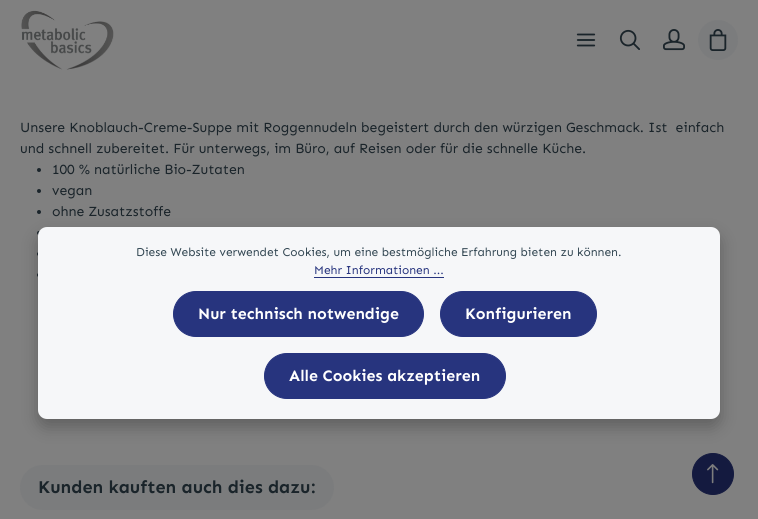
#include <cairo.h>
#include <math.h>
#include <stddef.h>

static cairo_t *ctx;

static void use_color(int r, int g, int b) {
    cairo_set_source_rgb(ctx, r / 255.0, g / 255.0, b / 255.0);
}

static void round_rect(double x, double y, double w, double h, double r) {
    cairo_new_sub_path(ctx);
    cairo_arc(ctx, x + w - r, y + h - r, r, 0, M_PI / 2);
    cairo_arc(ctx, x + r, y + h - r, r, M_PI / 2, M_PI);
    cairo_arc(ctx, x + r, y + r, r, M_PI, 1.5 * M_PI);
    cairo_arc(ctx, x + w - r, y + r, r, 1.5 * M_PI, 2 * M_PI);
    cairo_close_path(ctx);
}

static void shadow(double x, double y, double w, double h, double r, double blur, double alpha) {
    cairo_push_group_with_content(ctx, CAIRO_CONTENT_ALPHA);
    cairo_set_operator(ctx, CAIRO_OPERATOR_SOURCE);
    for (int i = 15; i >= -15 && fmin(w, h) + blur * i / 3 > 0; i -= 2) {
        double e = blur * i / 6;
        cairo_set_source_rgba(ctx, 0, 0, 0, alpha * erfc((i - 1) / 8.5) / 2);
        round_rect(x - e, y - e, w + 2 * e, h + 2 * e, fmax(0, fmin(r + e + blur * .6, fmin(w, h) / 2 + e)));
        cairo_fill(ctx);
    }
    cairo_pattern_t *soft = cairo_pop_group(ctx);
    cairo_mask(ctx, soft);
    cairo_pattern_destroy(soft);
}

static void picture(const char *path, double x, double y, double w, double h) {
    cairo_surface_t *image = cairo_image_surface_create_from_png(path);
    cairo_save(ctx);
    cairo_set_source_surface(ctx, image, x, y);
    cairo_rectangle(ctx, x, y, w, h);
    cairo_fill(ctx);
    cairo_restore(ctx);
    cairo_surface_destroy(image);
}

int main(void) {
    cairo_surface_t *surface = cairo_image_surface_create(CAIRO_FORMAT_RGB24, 758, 519);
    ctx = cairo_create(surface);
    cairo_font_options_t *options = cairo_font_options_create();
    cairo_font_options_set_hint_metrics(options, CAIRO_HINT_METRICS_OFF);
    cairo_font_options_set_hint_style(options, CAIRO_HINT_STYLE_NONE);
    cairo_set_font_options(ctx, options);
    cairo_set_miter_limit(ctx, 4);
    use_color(128, 128, 128);
    cairo_paint(ctx);
    picture("img1.png", 21, 10, 93, 60);
    picture("img2.png", 576, 33, 20, 14);
    picture("img3.png", 619, 29, 21, 21);
    picture("img4.png", 663, 29, 22, 22);
    use_color(123, 124, 125);
    cairo_arc(ctx, 718, 40, 20, 0, 2 * M_PI);
    cairo_fill(ctx);
    picture("img5.png", 709, 29, 18, 22);
    cairo_select_font_face(ctx, "Sen", CAIRO_FONT_SLANT_NORMAL, CAIRO_FONT_WEIGHT_NORMAL);
    cairo_set_font_size(ctx, 14);
    use_color(26, 36, 42);
    cairo_move_to(ctx, 20, 132);
    cairo_show_text(ctx, "Unsere Knoblauch-Creme-Suppe mit Roggennudeln begeistert durch den würzigen Geschmack. Ist  einfach");
    cairo_move_to(ctx, 20, 153);
    cairo_show_text(ctx, "und schnell zubereitet. Für unterwegs, im Büro, auf Reisen oder für die schnelle Küche.");
    cairo_new_path(ctx);
    cairo_arc(ctx, 39, 170, 2, 0, 2 * M_PI);
    cairo_fill(ctx);
    cairo_move_to(ctx, 52, 174);
    cairo_show_text(ctx, "100 % natürliche Bio-Zutaten");
    cairo_new_path(ctx);
    cairo_arc(ctx, 39, 191, 2, 0, 2 * M_PI);
    cairo_fill(ctx);
    cairo_move_to(ctx, 52, 195);
    cairo_show_text(ctx, "vegan");
    cairo_new_path(ctx);
    cairo_arc(ctx, 39, 212, 2, 0, 2 * M_PI);
    cairo_fill(ctx);
    cairo_move_to(ctx, 52, 216);
    cairo_show_text(ctx, "ohne Zusatzstoffe");
    cairo_new_path(ctx);
    cairo_arc(ctx, 39, 233, 2, 0, 2 * M_PI);
    cairo_fill(ctx);
    cairo_arc(ctx, 39, 254, 2, 0, 2 * M_PI);
    cairo_fill(ctx);
    cairo_arc(ctx, 39, 275, 2, 0, 2 * M_PI);
    cairo_fill(ctx);
    use_color(123, 124, 125);
    round_rect(20, 465, 314, 45, 22.5);
    cairo_fill(ctx);
    cairo_select_font_face(ctx, "Sen", CAIRO_FONT_SLANT_NORMAL, CAIRO_FONT_WEIGHT_BOLD);
    cairo_set_font_size(ctx, 18);
    use_color(26, 36, 42);
    cairo_move_to(ctx, 38, 493);
    cairo_show_text(ctx, "Kunden kauften auch dies dazu:");
    use_color(0, 0, 0);
    shadow(38, 235, 682, 192, 9, 8, 0.25);
    use_color(246, 247, 249);
    round_rect(38, 227, 682, 192, 9);
    cairo_fill(ctx);
    cairo_select_font_face(ctx, "Sen", CAIRO_FONT_SLANT_NORMAL, CAIRO_FONT_WEIGHT_NORMAL);
    cairo_set_font_size(ctx, 12);
    use_color(52, 72, 84);
    cairo_move_to(ctx, 136, 256);
    cairo_show_text(ctx, "Diese Website verwendet Cookies, um eine bestmögliche Erfahrung bieten zu können.");
    use_color(39, 52, 126);
    cairo_move_to(ctx, 314, 274);
    cairo_show_text(ctx, "Mehr Informationen ...");
    cairo_rectangle(ctx, 314, 277, 130, 1);
    cairo_fill(ctx);
    round_rect(173.5, 291.5, 250, 45, 22.5);
    cairo_fill_preserve(ctx);
    cairo_set_line_width(ctx, 1);
    cairo_stroke(ctx);
    cairo_select_font_face(ctx, "Sen", CAIRO_FONT_SLANT_NORMAL, CAIRO_FONT_WEIGHT_BOLD);
    cairo_set_font_size(ctx, 16);
    use_color(255, 255, 255);
    cairo_move_to(ctx, 198, 319);
    cairo_show_text(ctx, "Nur technisch notwendige");
    use_color(39, 52, 126);
    round_rect(440.5, 291.5, 156, 45, 22.5);
    cairo_fill_preserve(ctx);
    cairo_stroke(ctx);
    use_color(255, 255, 255);
    cairo_move_to(ctx, 465, 319);
    cairo_show_text(ctx, "Konfigurieren");
    use_color(39, 52, 126);
    round_rect(264.5, 353.5, 241, 45, 22.5);
    cairo_fill_preserve(ctx);
    cairo_stroke(ctx);
    use_color(255, 255, 255);
    cairo_move_to(ctx, 289, 381);
    cairo_show_text(ctx, "Alle Cookies akzeptieren");
    use_color(20, 26, 63);
    cairo_new_path(ctx);
    cairo_arc(ctx, 713, 474, 20.5, 0, 2 * M_PI);
    cairo_fill_preserve(ctx);
    cairo_stroke(ctx);
    picture("img6.png", 707, 464, 12, 20);
    cairo_surface_write_to_png(surface, "result.png");
    cairo_font_options_destroy(options);
    cairo_destroy(ctx);
    cairo_surface_destroy(surface);
    return 0;
}
